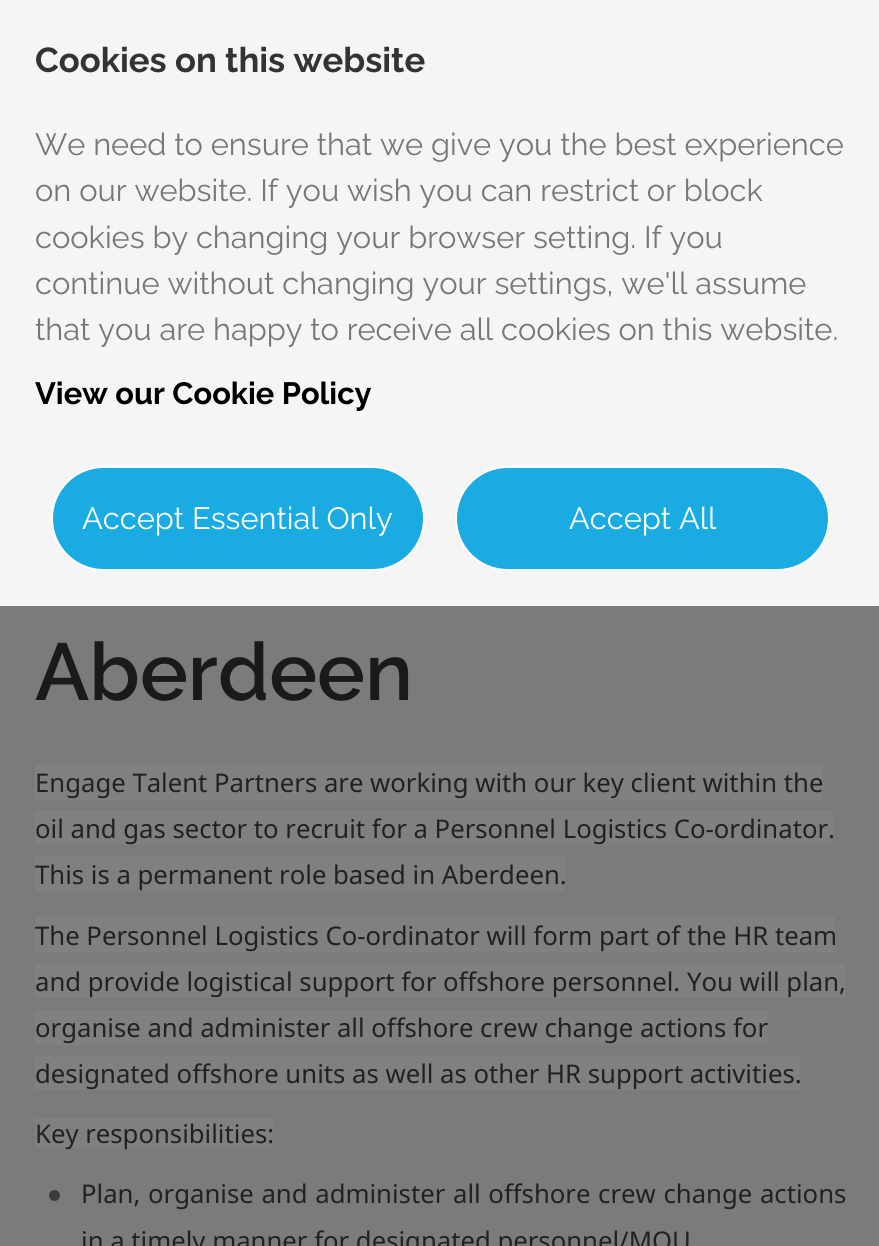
#include <cairo.h>
#include <math.h>
#include <stddef.h>

static cairo_t *ctx;

static void use_color(int r, int g, int b) {
    cairo_set_source_rgb(ctx, r / 255.0, g / 255.0, b / 255.0);
}

static void spaced_text(double x, double y, const char *s, double letter, double word) {
    cairo_move_to(ctx, x, y);
    while (*s) {
        char ch[5] = {0};
        int n = 0;
        do ch[n++] = *s++; while ((*s & 0xC0) == 0x80);
        cairo_show_text(ctx, ch);
        cairo_rel_move_to(ctx, letter + word * (*ch == ' '), 0);
    }
}

static void round_rect(double x, double y, double w, double h, double r) {
    cairo_new_sub_path(ctx);
    cairo_arc(ctx, x + w - r, y + h - r, r, 0, M_PI / 2);
    cairo_arc(ctx, x + r, y + h - r, r, M_PI / 2, M_PI);
    cairo_arc(ctx, x + r, y + r, r, M_PI, 1.5 * M_PI);
    cairo_arc(ctx, x + w - r, y + r, r, 1.5 * M_PI, 2 * M_PI);
    cairo_close_path(ctx);
}

int main(void) {
    cairo_surface_t *surface = cairo_image_surface_create(CAIRO_FORMAT_RGB24, 879, 1246);
    ctx = cairo_create(surface);
    cairo_font_options_t *options = cairo_font_options_create();
    cairo_font_options_set_hint_metrics(options, CAIRO_HINT_METRICS_OFF);
    cairo_font_options_set_hint_style(options, CAIRO_HINT_STYLE_NONE);
    cairo_set_font_options(ctx, options);
    cairo_set_miter_limit(ctx, 4);
    use_color(123, 123, 123);
    cairo_paint(ctx);
    use_color(245, 245, 245);
    cairo_rectangle(ctx, 0, 0, 879, 606);
    cairo_fill(ctx);
    cairo_select_font_face(ctx, "Raleway", CAIRO_FONT_SLANT_NORMAL, CAIRO_FONT_WEIGHT_BOLD);
    cairo_set_font_size(ctx, 34.6);
    use_color(51, 51, 51);
    cairo_move_to(ctx, 35, 72);
    cairo_show_text(ctx, "Cookies on this website");
    cairo_select_font_face(ctx, "Raleway", CAIRO_FONT_SLANT_NORMAL, CAIRO_FONT_WEIGHT_NORMAL);
    cairo_set_font_size(ctx, 30.8);
    use_color(119, 119, 119);
    cairo_move_to(ctx, 35, 155);
    cairo_show_text(ctx, "We need to ensure that we give you the best experience");
    cairo_move_to(ctx, 35, 201);
    cairo_show_text(ctx, "on our website. If you wish you can restrict or block");
    cairo_move_to(ctx, 35, 248);
    cairo_show_text(ctx, "cookies by changing your browser setting. If you");
    cairo_move_to(ctx, 35, 294);
    cairo_show_text(ctx, "continue without changing your settings, we'll assume");
    cairo_move_to(ctx, 35, 340);
    cairo_show_text(ctx, "that you are happy to receive all cookies on this website.");
    cairo_select_font_face(ctx, "Raleway", CAIRO_FONT_SLANT_NORMAL, CAIRO_FONT_WEIGHT_BOLD);
    use_color(0, 0, 0);
    cairo_move_to(ctx, 35, 404);
    cairo_show_text(ctx, "View our Cookie Policy");
    use_color(26, 171, 227);
    round_rect(52, 467, 372, 103, 51.5);
    cairo_fill_preserve(ctx);
    use_color(255, 255, 255);
    cairo_stroke(ctx);
    cairo_select_font_face(ctx, "Raleway", CAIRO_FONT_SLANT_NORMAL, CAIRO_FONT_WEIGHT_NORMAL);
    cairo_move_to(ctx, 82, 529);
    cairo_show_text(ctx, "Accept Essential Only");
    use_color(26, 171, 227);
    round_rect(456, 467, 373, 103, 51.5);
    cairo_fill_preserve(ctx);
    use_color(255, 255, 255);
    cairo_stroke(ctx);
    cairo_move_to(ctx, 569, 529);
    cairo_show_text(ctx, "Accept All");
    cairo_select_font_face(ctx, "Raleway SemiBold", CAIRO_FONT_SLANT_NORMAL, CAIRO_FONT_WEIGHT_NORMAL);
    cairo_set_font_size(ctx, 80.5);
    use_color(26, 26, 26);
    cairo_move_to(ctx, 35, 700);
    cairo_show_text(ctx, "Aberdeen");
    use_color(128, 128, 128);
    cairo_rectangle(ctx, 35, 765, 788, 35);
    cairo_fill(ctx);
    cairo_select_font_face(ctx, "Noto Sans", CAIRO_FONT_SLANT_NORMAL, CAIRO_FONT_WEIGHT_NORMAL);
    cairo_set_font_size(ctx, 25.7);
    use_color(33, 33, 33);
    cairo_move_to(ctx, 35, 792);
    cairo_show_text(ctx, "Engage Talent Partners are working with our key client within the");
    use_color(128, 128, 128);
    cairo_rectangle(ctx, 35, 810, 798, 35);
    cairo_fill(ctx);
    use_color(33, 33, 33);
    cairo_move_to(ctx, 35, 838);
    cairo_show_text(ctx, "oil and gas sector to recruit for a Personnel Logistics Co-ordinator.");
    use_color(128, 128, 128);
    cairo_rectangle(ctx, 35, 856, 530, 35);
    cairo_fill(ctx);
    use_color(33, 33, 33);
    cairo_move_to(ctx, 35, 884);
    cairo_show_text(ctx, "This is a permanent role based in Aberdeen.");
    use_color(128, 128, 128);
    cairo_rectangle(ctx, 35, 917, 800, 35);
    cairo_fill(ctx);
    use_color(33, 33, 33);
    cairo_move_to(ctx, 35, 945);
    cairo_show_text(ctx, "The Personnel Logistics Co-ordinator will form part of the HR team");
    use_color(128, 128, 128);
    cairo_rectangle(ctx, 35, 963, 810, 35);
    cairo_fill(ctx);
    use_color(33, 33, 33);
    cairo_move_to(ctx, 35, 991);
    cairo_show_text(ctx, "and provide logistical support for offshore personnel. You will plan,");
    use_color(128, 128, 128);
    cairo_rectangle(ctx, 35, 1010, 732, 35);
    cairo_fill(ctx);
    use_color(33, 33, 33);
    cairo_move_to(ctx, 35, 1037);
    cairo_show_text(ctx, "organise and administer all offshore crew change actions for");
    use_color(128, 128, 128);
    cairo_rectangle(ctx, 35, 1055, 765, 35);
    cairo_fill(ctx);
    use_color(33, 33, 33);
    cairo_move_to(ctx, 35, 1083);
    cairo_show_text(ctx, "designated offshore units as well as other HR support activities.");
    use_color(128, 128, 128);
    cairo_rectangle(ctx, 35, 1118, 238, 30);
    cairo_fill(ctx);
    use_color(33, 33, 33);
    cairo_move_to(ctx, 35, 1143);
    cairo_show_text(ctx, "Key responsibilities:");
    use_color(60, 60, 60);
    cairo_new_path(ctx);
    cairo_arc(ctx, 54.5, 1195.5, 5.5, 0, 2 * M_PI);
    cairo_fill(ctx);
    use_color(33, 33, 33);
    spaced_text(81, 1203, "Plan, organise and administer all offshore crew change actions", 0, 1);
    cairo_move_to(ctx, 81, 1250);
    cairo_show_text(ctx, "in a timely manner for designated personnel/MOU");
    cairo_surface_write_to_png(surface, "result.png");
    cairo_font_options_destroy(options);
    cairo_destroy(ctx);
    cairo_surface_destroy(surface);
    return 0;
}
